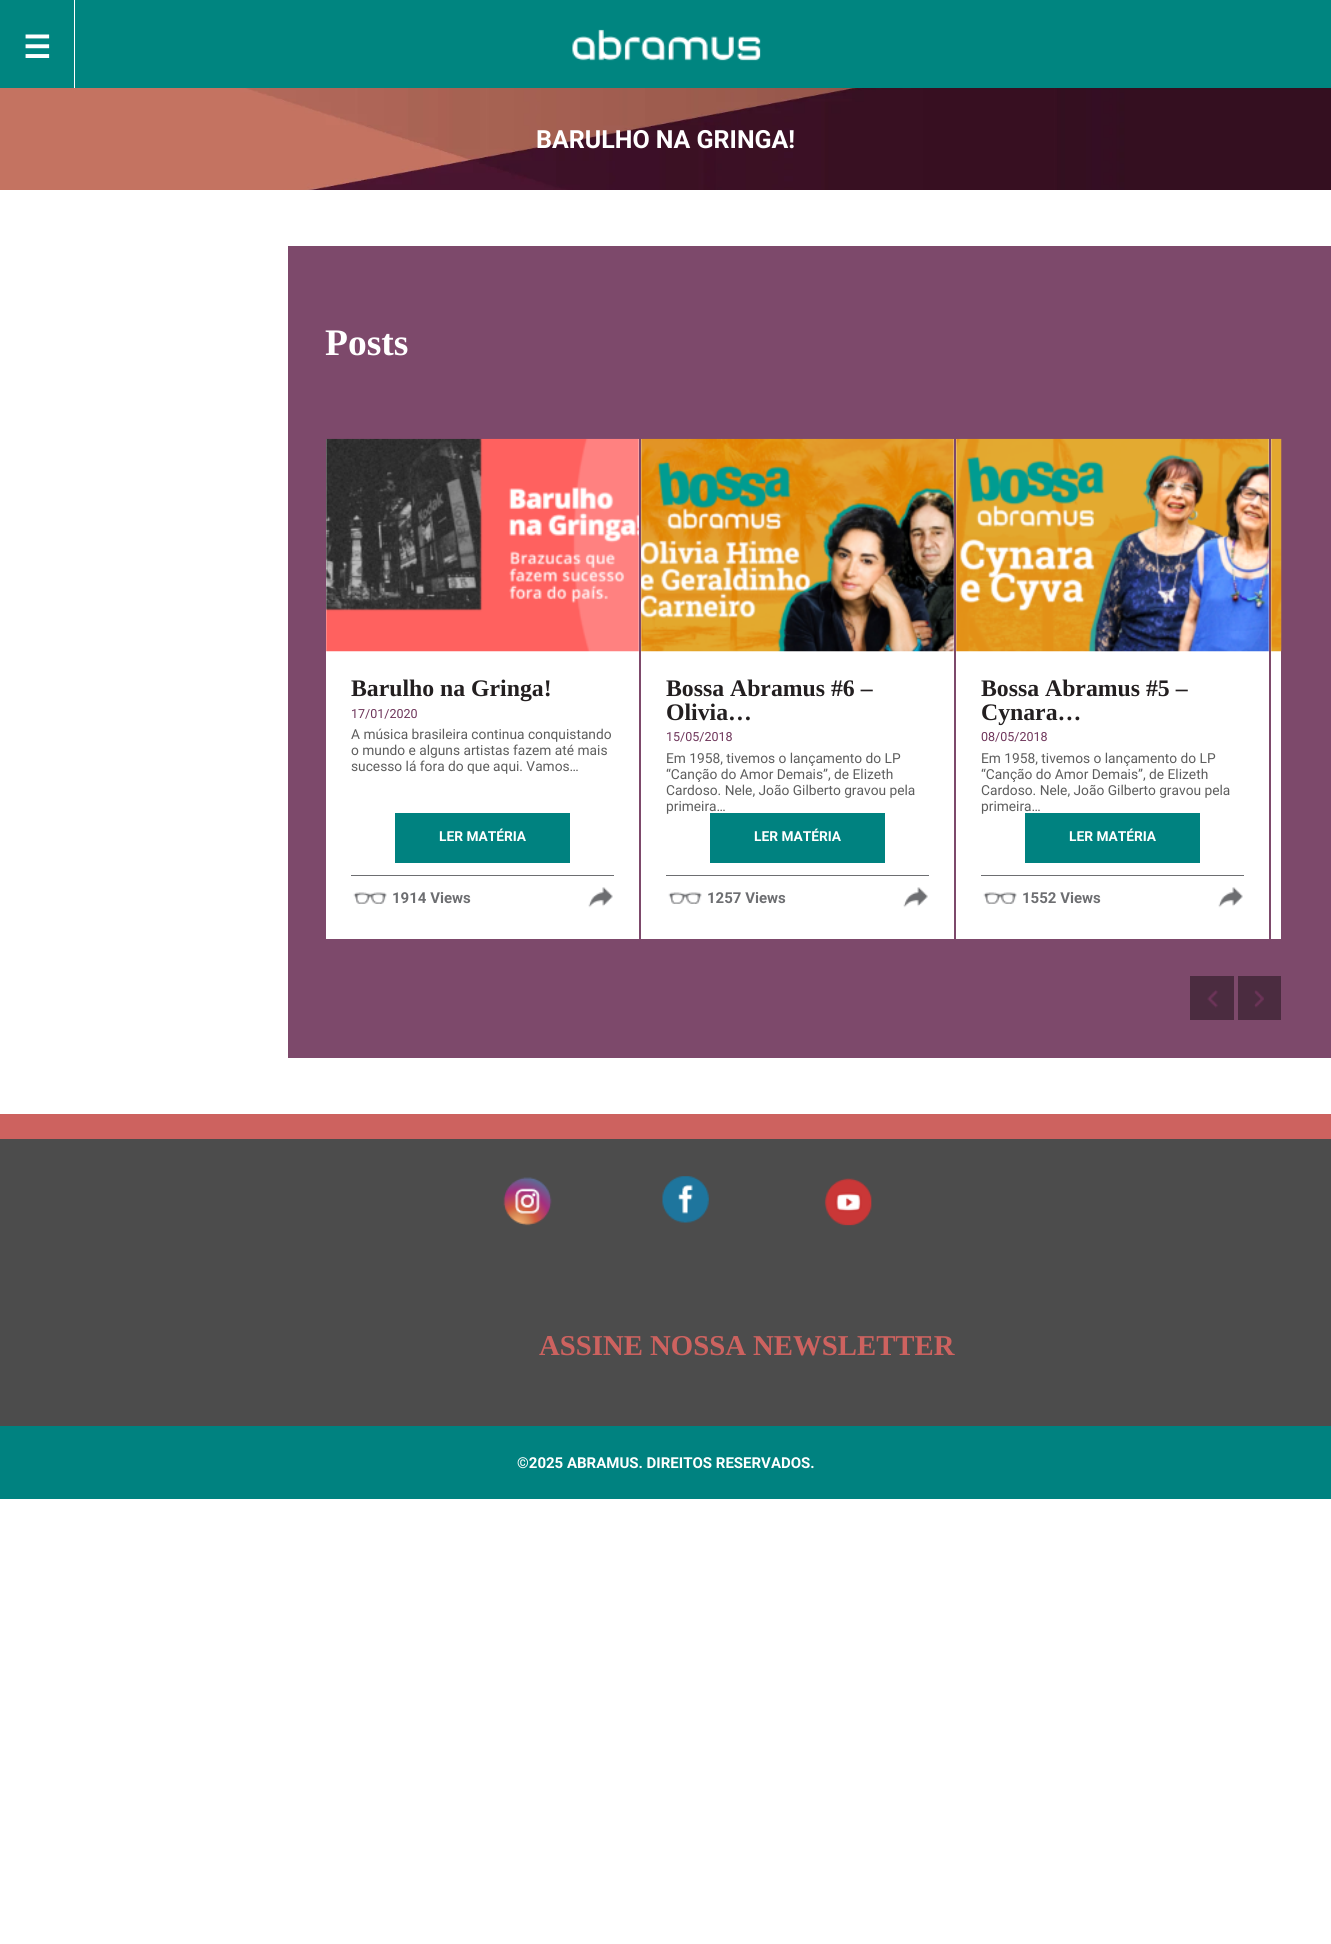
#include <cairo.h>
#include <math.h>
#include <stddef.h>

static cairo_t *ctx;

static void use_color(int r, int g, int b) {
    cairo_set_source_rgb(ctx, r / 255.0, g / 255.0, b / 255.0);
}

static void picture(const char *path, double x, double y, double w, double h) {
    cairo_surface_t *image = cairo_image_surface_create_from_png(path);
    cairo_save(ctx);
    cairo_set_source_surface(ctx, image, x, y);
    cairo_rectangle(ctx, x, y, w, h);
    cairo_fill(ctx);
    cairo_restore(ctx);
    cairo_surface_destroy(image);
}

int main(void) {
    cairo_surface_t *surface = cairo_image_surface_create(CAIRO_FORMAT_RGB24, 1331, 1944);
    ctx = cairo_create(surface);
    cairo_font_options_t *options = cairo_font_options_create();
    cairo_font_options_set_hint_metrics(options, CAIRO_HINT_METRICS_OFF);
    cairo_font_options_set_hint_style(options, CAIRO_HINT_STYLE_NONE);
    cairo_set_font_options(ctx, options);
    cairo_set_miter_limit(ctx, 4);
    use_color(255, 255, 255);
    cairo_paint(ctx);
    picture("img1.png", 0, 88, 1331, 102);
    use_color(0, 133, 128);
    cairo_rectangle(ctx, 0, 0, 1331, 88);
    cairo_fill(ctx);
    picture("img2.png", 572, 29, 189, 32);
    use_color(255, 255, 255);
    cairo_rectangle(ctx, 74, 0, 1, 88);
    cairo_fill(ctx);
    cairo_select_font_face(ctx, "DejaVu Sans", CAIRO_FONT_SLANT_NORMAL, CAIRO_FONT_WEIGHT_BOLD);
    cairo_set_font_size(ctx, 31);
    cairo_move_to(ctx, 23, 58);
    cairo_show_text(ctx, "☰");
    cairo_select_font_face(ctx, "Roboto", CAIRO_FONT_SLANT_NORMAL, CAIRO_FONT_WEIGHT_BOLD);
    cairo_set_font_size(ctx, 25);
    cairo_move_to(ctx, 536, 148);
    cairo_show_text(ctx, "BARULHO NA GRINGA!");
    use_color(125, 73, 107);
    cairo_rectangle(ctx, 288, 246, 1043, 812);
    cairo_fill(ctx);
    cairo_select_font_face(ctx, "Liberation Serif", CAIRO_FONT_SLANT_NORMAL, CAIRO_FONT_WEIGHT_BOLD);
    cairo_set_font_size(ctx, 37.5);
    use_color(255, 255, 255);
    cairo_move_to(ctx, 325, 355);
    cairo_show_text(ctx, "Posts");
    cairo_rectangle(ctx, 326, 439, 313, 500);
    cairo_fill(ctx);
    picture("img3.png", 326, 438, 313, 214);
    cairo_set_font_size(ctx, 23.75);
    use_color(35, 31, 32);
    cairo_move_to(ctx, 351, 696);
    cairo_show_text(ctx, "Barulho na Gringa!");
    cairo_select_font_face(ctx, "Roboto", CAIRO_FONT_SLANT_NORMAL, CAIRO_FONT_WEIGHT_NORMAL);
    cairo_set_font_size(ctx, 12.5);
    use_color(110, 53, 90);
    cairo_move_to(ctx, 351, 718);
    cairo_show_text(ctx, "17/01/2020");
    cairo_set_font_size(ctx, 13.75);
    use_color(93, 93, 93);
    cairo_move_to(ctx, 351, 739);
    cairo_show_text(ctx, "A música brasileira continua conquistando");
    cairo_move_to(ctx, 351, 755);
    cairo_show_text(ctx, "o mundo e alguns artistas fazem até mais");
    cairo_move_to(ctx, 351, 771);
    cairo_show_text(ctx, "sucesso lá fora do que aqui. Vamos…");
    use_color(0, 130, 128);
    cairo_rectangle(ctx, 395, 813, 175, 50);
    cairo_fill(ctx);
    cairo_select_font_face(ctx, "Roboto", CAIRO_FONT_SLANT_NORMAL, CAIRO_FONT_WEIGHT_BOLD);
    use_color(255, 255, 255);
    cairo_move_to(ctx, 439, 841);
    cairo_show_text(ctx, "LER MATÉRIA");
    use_color(109, 110, 113);
    cairo_rectangle(ctx, 351, 875, 263, 1);
    cairo_fill(ctx);
    picture("img4.png", 353, 892, 34, 12);
    cairo_set_font_size(ctx, 15);
    cairo_move_to(ctx, 392, 903);
    cairo_show_text(ctx, "1914 Views");
    picture("img5.png", 588, 887, 25, 21);
    use_color(255, 255, 255);
    cairo_rectangle(ctx, 641, 439, 313, 500);
    cairo_fill(ctx);
    picture("img6.png", 641, 438, 313, 214);
    cairo_select_font_face(ctx, "Liberation Serif", CAIRO_FONT_SLANT_NORMAL, CAIRO_FONT_WEIGHT_BOLD);
    cairo_set_font_size(ctx, 23.75);
    use_color(35, 31, 32);
    cairo_move_to(ctx, 666, 696);
    cairo_show_text(ctx, "Bossa Abramus #6 –");
    cairo_move_to(ctx, 666, 720);
    cairo_show_text(ctx, "Olivia…");
    cairo_select_font_face(ctx, "Roboto", CAIRO_FONT_SLANT_NORMAL, CAIRO_FONT_WEIGHT_NORMAL);
    cairo_set_font_size(ctx, 12.5);
    use_color(110, 53, 90);
    cairo_move_to(ctx, 666, 741);
    cairo_show_text(ctx, "15/05/2018");
    cairo_set_font_size(ctx, 13.75);
    use_color(93, 93, 93);
    cairo_move_to(ctx, 666, 763);
    cairo_show_text(ctx, "Em 1958, tivemos o lançamento do LP");
    cairo_move_to(ctx, 666, 779);
    cairo_show_text(ctx, "“Canção do Amor Demais”, de Elizeth");
    cairo_move_to(ctx, 666, 795);
    cairo_show_text(ctx, "Cardoso. Nele, João Gilberto gravou pela");
    cairo_move_to(ctx, 666, 811);
    cairo_show_text(ctx, "primeira…");
    use_color(0, 130, 128);
    cairo_rectangle(ctx, 710, 813, 175, 50);
    cairo_fill(ctx);
    cairo_select_font_face(ctx, "Roboto", CAIRO_FONT_SLANT_NORMAL, CAIRO_FONT_WEIGHT_BOLD);
    use_color(255, 255, 255);
    cairo_move_to(ctx, 754, 841);
    cairo_show_text(ctx, "LER MATÉRIA");
    use_color(109, 110, 113);
    cairo_rectangle(ctx, 666, 875, 263, 1);
    cairo_fill(ctx);
    picture("img4.png", 668, 892, 34, 12);
    cairo_set_font_size(ctx, 15);
    cairo_move_to(ctx, 707, 903);
    cairo_show_text(ctx, "1257 Views");
    picture("img7.png", 903, 887, 25, 21);
    use_color(255, 255, 255);
    cairo_rectangle(ctx, 956, 439, 313, 500);
    cairo_fill(ctx);
    picture("img8.png", 956, 438, 313, 214);
    cairo_select_font_face(ctx, "Liberation Serif", CAIRO_FONT_SLANT_NORMAL, CAIRO_FONT_WEIGHT_BOLD);
    cairo_set_font_size(ctx, 23.75);
    use_color(35, 31, 32);
    cairo_move_to(ctx, 981, 696);
    cairo_show_text(ctx, "Bossa Abramus #5 –");
    cairo_move_to(ctx, 981, 720);
    cairo_show_text(ctx, "Cynara…");
    cairo_select_font_face(ctx, "Roboto", CAIRO_FONT_SLANT_NORMAL, CAIRO_FONT_WEIGHT_NORMAL);
    cairo_set_font_size(ctx, 12.5);
    use_color(110, 53, 90);
    cairo_move_to(ctx, 981, 741);
    cairo_show_text(ctx, "08/05/2018");
    cairo_set_font_size(ctx, 13.75);
    use_color(93, 93, 93);
    cairo_move_to(ctx, 981, 763);
    cairo_show_text(ctx, "Em 1958, tivemos o lançamento do LP");
    cairo_move_to(ctx, 981, 779);
    cairo_show_text(ctx, "“Canção do Amor Demais”, de Elizeth");
    cairo_move_to(ctx, 981, 795);
    cairo_show_text(ctx, "Cardoso. Nele, João Gilberto gravou pela");
    cairo_move_to(ctx, 981, 811);
    cairo_show_text(ctx, "primeira…");
    use_color(0, 130, 128);
    cairo_rectangle(ctx, 1025, 813, 175, 50);
    cairo_fill(ctx);
    cairo_select_font_face(ctx, "Roboto", CAIRO_FONT_SLANT_NORMAL, CAIRO_FONT_WEIGHT_BOLD);
    use_color(255, 255, 255);
    cairo_move_to(ctx, 1069, 841);
    cairo_show_text(ctx, "LER MATÉRIA");
    use_color(109, 110, 113);
    cairo_rectangle(ctx, 981, 875, 263, 1);
    cairo_fill(ctx);
    picture("img4.png", 983, 892, 34, 12);
    cairo_set_font_size(ctx, 15);
    cairo_move_to(ctx, 1022, 903);
    cairo_show_text(ctx, "1552 Views");
    picture("img5.png", 1218, 887, 25, 21);
    use_color(255, 255, 255);
    cairo_rectangle(ctx, 1271, 439, 10, 500);
    cairo_fill(ctx);
    picture("img9.png", 1271, 438, 11, 214);
    use_color(75, 44, 64);
    cairo_rectangle(ctx, 1190, 976, 44, 44);
    cairo_fill(ctx);
    picture("img10.png", 1207, 990, 11, 18);
    cairo_rectangle(ctx, 1238, 976, 43, 44);
    cairo_fill(ctx);
    picture("img11.png", 1254, 990, 10, 18);
    use_color(205, 98, 95);
    cairo_rectangle(ctx, 0, 1114, 1331, 25);
    cairo_fill(ctx);
    use_color(76, 76, 76);
    cairo_rectangle(ctx, 0, 1139, 1331, 287);
    cairo_fill(ctx);
    picture("img12.png", 503, 1177, 49, 49);
    picture("img13.png", 662, 1176, 47, 47);
    picture("img14.png", 824, 1178, 48, 48);
    cairo_select_font_face(ctx, "Liberation Serif", CAIRO_FONT_SLANT_NORMAL, CAIRO_FONT_WEIGHT_BOLD);
    cairo_set_font_size(ctx, 28.75);
    use_color(205, 98, 95);
    cairo_move_to(ctx, 539, 1355);
    cairo_show_text(ctx, "ASSINE NOSSA NEWSLETTER");
    use_color(0, 130, 128);
    cairo_rectangle(ctx, 0, 1426, 1331, 73);
    cairo_fill(ctx);
    cairo_select_font_face(ctx, "Roboto", CAIRO_FONT_SLANT_NORMAL, CAIRO_FONT_WEIGHT_BOLD);
    cairo_set_font_size(ctx, 15);
    use_color(255, 255, 255);
    cairo_move_to(ctx, 517, 1468);
    cairo_show_text(ctx, "©2025 ABRAMUS. DIREITOS RESERVADOS.");
    cairo_surface_write_to_png(surface, "result.png");
    cairo_font_options_destroy(options);
    cairo_destroy(ctx);
    cairo_surface_destroy(surface);
    return 0;
}
